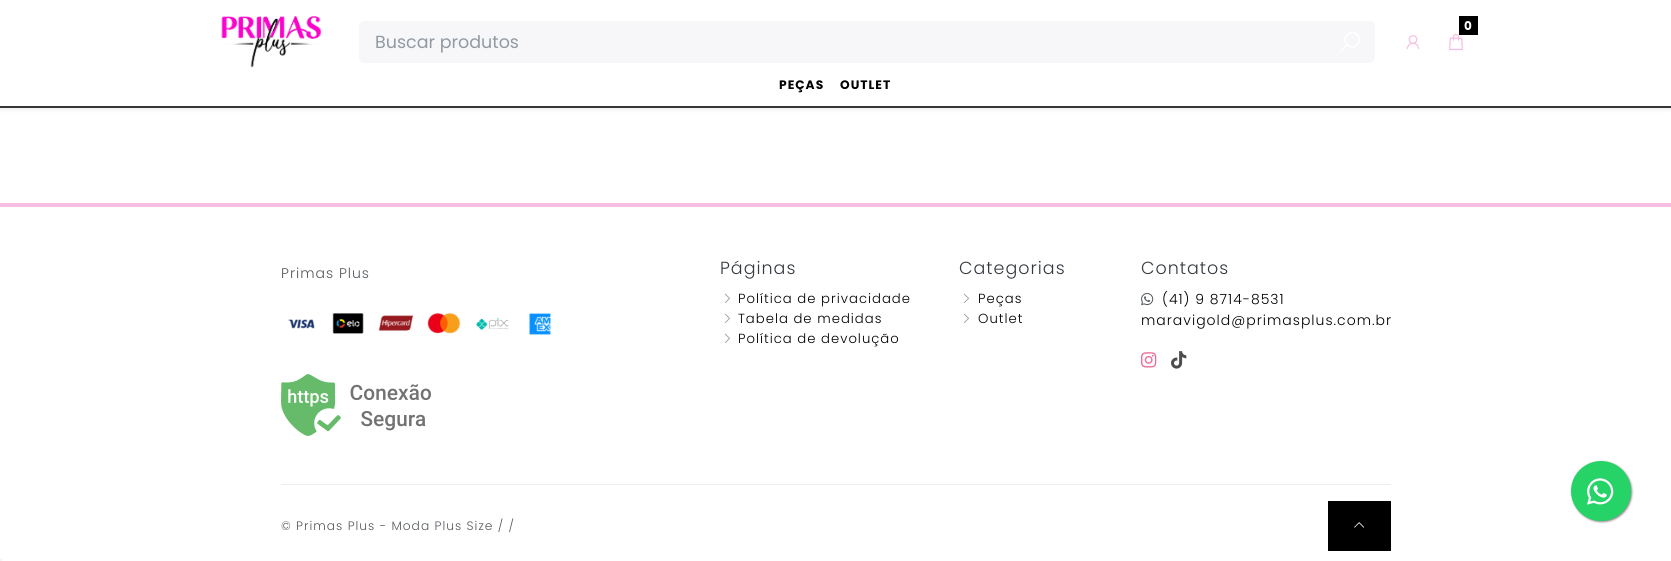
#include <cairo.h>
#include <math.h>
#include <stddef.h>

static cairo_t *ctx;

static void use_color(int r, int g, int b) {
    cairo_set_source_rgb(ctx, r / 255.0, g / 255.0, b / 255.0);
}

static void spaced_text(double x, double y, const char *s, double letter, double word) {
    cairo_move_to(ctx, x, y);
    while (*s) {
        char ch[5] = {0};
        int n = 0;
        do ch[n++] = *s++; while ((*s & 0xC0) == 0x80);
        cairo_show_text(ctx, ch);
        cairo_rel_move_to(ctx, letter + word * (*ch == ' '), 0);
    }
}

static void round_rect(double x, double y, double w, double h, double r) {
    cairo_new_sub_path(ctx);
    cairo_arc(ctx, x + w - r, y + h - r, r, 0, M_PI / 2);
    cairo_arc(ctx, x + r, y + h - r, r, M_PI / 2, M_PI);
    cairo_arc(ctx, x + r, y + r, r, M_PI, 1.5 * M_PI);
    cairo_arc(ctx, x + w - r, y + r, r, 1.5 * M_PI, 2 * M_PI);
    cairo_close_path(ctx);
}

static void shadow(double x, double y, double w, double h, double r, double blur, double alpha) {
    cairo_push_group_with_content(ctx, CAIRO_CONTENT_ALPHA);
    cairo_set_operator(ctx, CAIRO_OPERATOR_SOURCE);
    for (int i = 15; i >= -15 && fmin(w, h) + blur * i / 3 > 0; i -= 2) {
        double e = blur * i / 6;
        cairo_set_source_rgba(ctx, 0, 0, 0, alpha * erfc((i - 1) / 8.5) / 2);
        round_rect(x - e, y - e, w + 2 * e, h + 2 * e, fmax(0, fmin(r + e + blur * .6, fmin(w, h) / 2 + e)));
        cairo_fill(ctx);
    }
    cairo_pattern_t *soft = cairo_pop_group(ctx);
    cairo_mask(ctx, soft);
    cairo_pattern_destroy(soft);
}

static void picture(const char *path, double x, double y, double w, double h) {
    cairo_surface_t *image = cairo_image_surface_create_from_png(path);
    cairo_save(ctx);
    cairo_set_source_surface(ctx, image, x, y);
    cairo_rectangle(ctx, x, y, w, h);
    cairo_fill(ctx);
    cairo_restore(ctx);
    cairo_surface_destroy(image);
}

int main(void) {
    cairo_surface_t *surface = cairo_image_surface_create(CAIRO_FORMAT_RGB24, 1671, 561);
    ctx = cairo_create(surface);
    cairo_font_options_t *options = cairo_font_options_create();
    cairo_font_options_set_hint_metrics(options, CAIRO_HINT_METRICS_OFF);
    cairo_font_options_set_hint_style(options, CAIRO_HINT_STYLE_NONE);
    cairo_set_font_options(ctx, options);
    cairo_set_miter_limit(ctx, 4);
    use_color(255, 255, 255);
    cairo_paint(ctx);
    use_color(0, 0, 0);
    shadow(0, 2, 1671, 108, 0, 2, 0.07);
    use_color(255, 255, 255);
    cairo_rectangle(ctx, 0, 0, 1671, 106);
    cairo_fill(ctx);
    use_color(54, 54, 54);
    cairo_rectangle(ctx, 0, 106, 1671, 2);
    cairo_fill(ctx);
    picture("img1.png", 221, 15, 101, 53);
    picture("img2.png", 1449, 34, 14, 17);
    use_color(0, 0, 0);
    cairo_rectangle(ctx, 1459, 16, 19, 19);
    cairo_fill(ctx);
    cairo_select_font_face(ctx, "Poppins", CAIRO_FONT_SLANT_NORMAL, CAIRO_FONT_WEIGHT_BOLD);
    cairo_set_font_size(ctx, 12);
    use_color(255, 255, 255);
    spaced_text(1464, 30, "0", 1, 0);
    picture("img3.png", 1406, 35, 14, 14);
    use_color(247, 247, 249);
    round_rect(359, 21, 1016, 42, 5);
    cairo_fill(ctx);
    cairo_select_font_face(ctx, "Poppins", CAIRO_FONT_SLANT_NORMAL, CAIRO_FONT_WEIGHT_NORMAL);
    cairo_set_font_size(ctx, 17.5);
    use_color(145, 154, 161);
    cairo_move_to(ctx, 375, 48);
    cairo_show_text(ctx, "Buscar produtos");
    picture("img4.png", 1340, 32, 20, 20);
    cairo_select_font_face(ctx, "Poppins", CAIRO_FONT_SLANT_NORMAL, CAIRO_FONT_WEIGHT_BOLD);
    cairo_set_font_size(ctx, 12.25);
    use_color(0, 0, 0);
    spaced_text(779, 89, "PEÇAS", 1, 0);
    spaced_text(840, 89, "OUTLET", 1, 0);
    use_color(248, 190, 226);
    cairo_rectangle(ctx, 0, 203, 1671, 4);
    cairo_fill(ctx);
    cairo_select_font_face(ctx, "Poppins Light", CAIRO_FONT_SLANT_NORMAL, CAIRO_FONT_WEIGHT_NORMAL);
    cairo_set_font_size(ctx, 14);
    use_color(85, 89, 92);
    spaced_text(281, 278, "Primas Plus", 1, 0);
    picture("img5.png", 288, 319, 27, 10);
    picture("img6.png", 332, 313, 32, 21);
    picture("img7.png", 378, 315, 36, 16);
    picture("img8.png", 427, 312, 34, 22);
    picture("img9.png", 476, 318, 33, 12);
    picture("img10.png", 529, 313, 22, 22);
    picture("img11.png", 281, 374, 150, 62);
    use_color(245, 245, 245);
    cairo_rectangle(ctx, 0, 559, 2, 2);
    cairo_fill(ctx);
    cairo_set_font_size(ctx, 17.5);
    use_color(52, 58, 64);
    spaced_text(720, 274, "Páginas", 1, 0);
    picture("img12.png", 724, 293, 6, 11);
    cairo_set_font_size(ctx, 13.2);
    use_color(0, 0, 0);
    spaced_text(738, 303, "Política de privacidade", 1, 0);
    picture("img12.png", 724, 313, 6, 11);
    spaced_text(738, 323, "Tabela de medidas", 1, 0);
    picture("img12.png", 724, 333, 6, 11);
    spaced_text(738, 343, "Política de devolução", 1, 0);
    cairo_set_font_size(ctx, 17.5);
    use_color(52, 58, 64);
    spaced_text(959, 274, "Categorias", 1, 0);
    picture("img12.png", 963, 293, 6, 11);
    cairo_set_font_size(ctx, 13.2);
    use_color(0, 0, 0);
    spaced_text(978, 303, "Peças", 1, 0);
    picture("img12.png", 963, 313, 6, 11);
    spaced_text(978, 323, "Outlet", 1, 0);
    cairo_set_font_size(ctx, 17.5);
    use_color(52, 58, 64);
    spaced_text(1141, 274, "Contatos", 1, 0);
    picture("img13.png", 1141, 293, 13, 13);
    cairo_set_font_size(ctx, 14);
    use_color(0, 0, 0);
    spaced_text(1162, 304, "(41) 9 8714-8531", 1, 0);
    spaced_text(1141, 325, "maravigold@primasplus.com.br", 1, 0);
    picture("img14.png", 1141, 352, 16, 16);
    picture("img15.png", 1171, 351, 16, 18);
    use_color(236, 238, 239);
    cairo_rectangle(ctx, 281, 484, 1110, 1);
    cairo_fill(ctx);
    cairo_set_font_size(ctx, 12.25);
    use_color(85, 89, 92);
    spaced_text(281, 530, "© Primas Plus - Moda Plus Size / /", 1, 0);
    use_color(0, 0, 0);
    cairo_rectangle(ctx, 1328, 501, 63, 50);
    cairo_fill(ctx);
    picture("img16.png", 1354, 522, 11, 6);
    use_color(136, 136, 136);
    shadow(1572, 462, 60, 60, 30, 1, 1);
    use_color(37, 211, 102);
    cairo_arc(ctx, 1601, 491, 30, 0, 2 * M_PI);
    cairo_fill(ctx);
    picture("img17.png", 1587, 478, 27, 27);
    cairo_surface_write_to_png(surface, "result.png");
    cairo_font_options_destroy(options);
    cairo_destroy(ctx);
    cairo_surface_destroy(surface);
    return 0;
}
